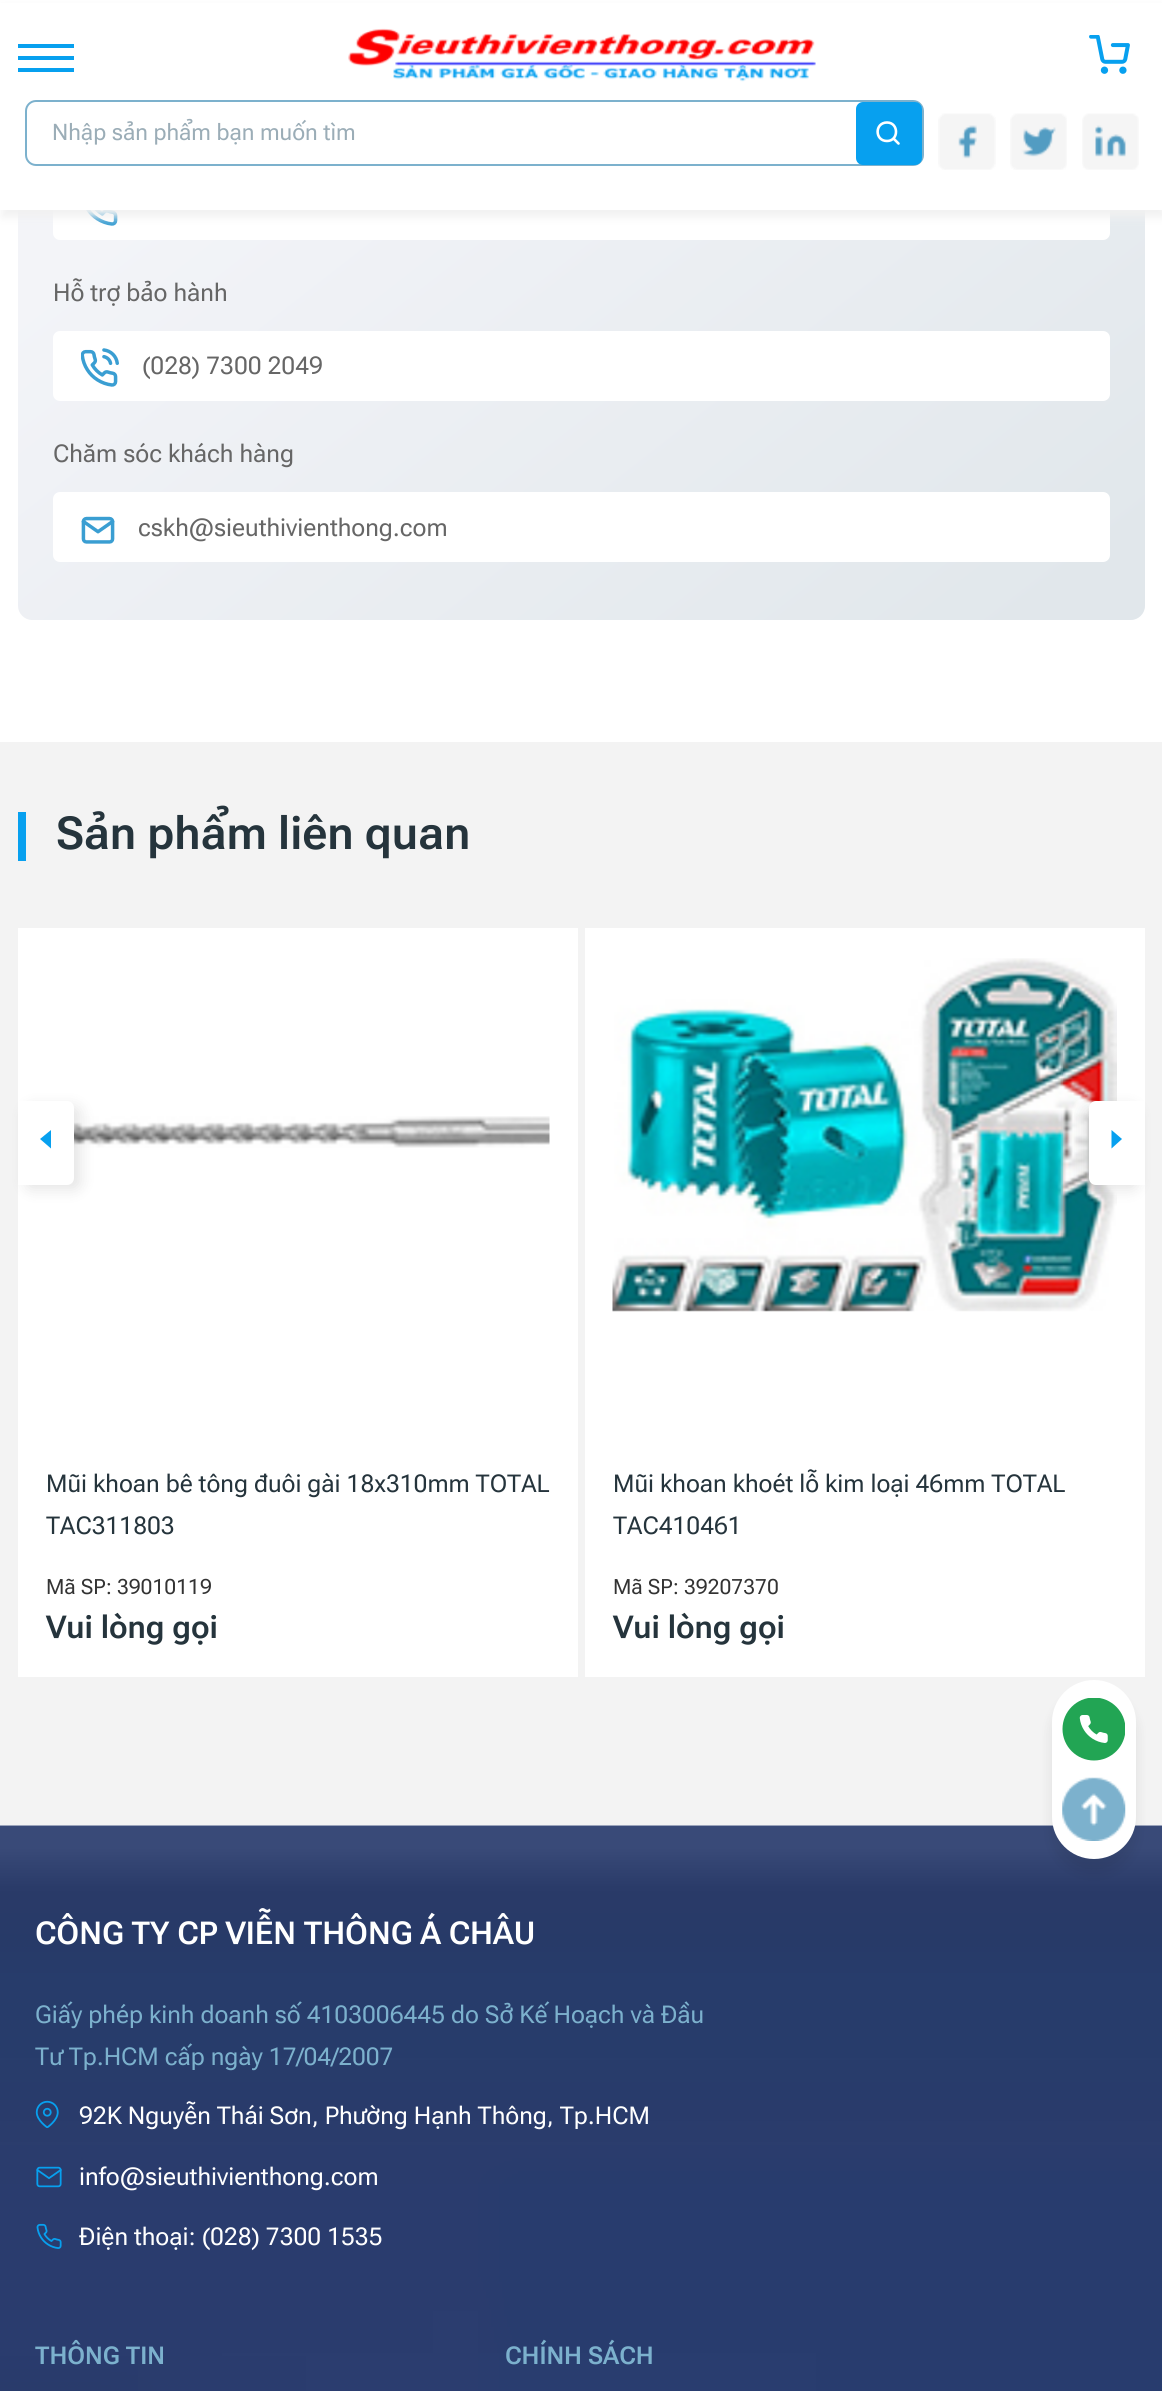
#include <cairo.h>
#include <math.h>
#include <stddef.h>

static cairo_t *ctx;

static void use_color(int r, int g, int b) {
    cairo_set_source_rgb(ctx, r / 255.0, g / 255.0, b / 255.0);
}

static void round_rect(double x, double y, double w, double h, double r) {
    cairo_new_sub_path(ctx);
    cairo_arc(ctx, x + w - r, y + h - r, r, 0, M_PI / 2);
    cairo_arc(ctx, x + r, y + h - r, r, M_PI / 2, M_PI);
    cairo_arc(ctx, x + r, y + r, r, M_PI, 1.5 * M_PI);
    cairo_arc(ctx, x + w - r, y + r, r, 1.5 * M_PI, 2 * M_PI);
    cairo_close_path(ctx);
}

static void shadow(double x, double y, double w, double h, double r, double blur, double alpha) {
    cairo_push_group_with_content(ctx, CAIRO_CONTENT_ALPHA);
    cairo_set_operator(ctx, CAIRO_OPERATOR_SOURCE);
    for (int i = 15; i >= -15 && fmin(w, h) + blur * i / 3 > 0; i -= 2) {
        double e = blur * i / 6;
        cairo_set_source_rgba(ctx, 0, 0, 0, alpha * erfc((i - 1) / 8.5) / 2);
        round_rect(x - e, y - e, w + 2 * e, h + 2 * e, fmax(0, fmin(r + e + blur * .6, fmin(w, h) / 2 + e)));
        cairo_fill(ctx);
    }
    cairo_pattern_t *soft = cairo_pop_group(ctx);
    cairo_mask(ctx, soft);
    cairo_pattern_destroy(soft);
}

static void picture(const char *path, double x, double y, double w, double h) {
    cairo_surface_t *image = cairo_image_surface_create_from_png(path);
    cairo_save(ctx);
    cairo_set_source_surface(ctx, image, x, y);
    cairo_rectangle(ctx, x, y, w, h);
    cairo_fill(ctx);
    cairo_restore(ctx);
    cairo_surface_destroy(image);
}

int main(void) {
    cairo_surface_t *surface = cairo_image_surface_create(CAIRO_FORMAT_RGB24, 1162, 2391);
    ctx = cairo_create(surface);
    cairo_font_options_t *options = cairo_font_options_create();
    cairo_font_options_set_hint_metrics(options, CAIRO_HINT_METRICS_OFF);
    cairo_font_options_set_hint_style(options, CAIRO_HINT_STYLE_NONE);
    cairo_set_font_options(ctx, options);
    cairo_set_miter_limit(ctx, 4);
    cairo_pattern_t *gradient;
    use_color(255, 255, 255);
    cairo_paint(ctx);
    gradient = cairo_pattern_create_linear(236, -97, 926, 790);
    cairo_pattern_add_color_stop_rgba(gradient, 0.16, 0.953, 0.957, 0.973, 1);
    cairo_pattern_add_color_stop_rgba(gradient, 0.94, 0.882, 0.906, 0.922, 1);
    cairo_set_source(ctx, gradient);
    cairo_pattern_destroy(gradient);
    cairo_new_path(ctx);
    cairo_move_to(ctx, 18, 74);
    cairo_line_to(ctx, 1145, 74);
    cairo_line_to(ctx, 1145, 606);
    cairo_curve_to(ctx, 1145, 613.5, 1138.5, 620, 1131, 620);
    cairo_line_to(ctx, 32, 620);
    cairo_curve_to(ctx, 24.5, 620, 18, 613.5, 18, 606);
    cairo_close_path(ctx);
    cairo_fill(ctx);
    use_color(255, 255, 255);
    round_rect(53, 168, 1057, 72, 7);
    cairo_fill(ctx);
    picture("img6.png", 86, 210, 32, 16);
    use_color(241, 241, 241);
    shadow(2, 7, 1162, 210, 0, 4.5, 1);
    use_color(255, 255, 255);
    cairo_rectangle(ctx, 0, 3, 1162, 207);
    cairo_fill(ctx);
    use_color(7, 160, 239);
    cairo_rectangle(ctx, 18, 44, 56, 4);
    cairo_fill(ctx);
    cairo_rectangle(ctx, 18, 56, 56, 4);
    cairo_fill(ctx);
    cairo_rectangle(ctx, 18, 68, 56, 4);
    cairo_fill(ctx);
    picture("img1.png", 348, 28, 468, 54);
    picture("img2.png", 1089, 35, 41, 39);
    round_rect(26, 101, 897, 64, 10);
    use_color(124, 177, 205);
    cairo_stroke(ctx);
    cairo_select_font_face(ctx, "Roboto Flex", CAIRO_FONT_SLANT_NORMAL, CAIRO_FONT_WEIGHT_NORMAL);
    cairo_set_font_size(ctx, 22.75);
    use_color(155, 173, 183);
    cairo_move_to(ctx, 52, 140);
    cairo_show_text(ctx, "Nhập sản phẩm bạn muốn tìm");
    use_color(7, 160, 239);
    round_rect(856, 102, 66, 63, 7);
    cairo_fill(ctx);
    cairo_new_path(ctx);
    cairo_move_to(ctx, 887, 141);
    cairo_curve_to(ctx, 899, 141, 899, 122.5, 887, 122.5);
    cairo_curve_to(ctx, 874.5, 122.5, 874.5, 141, 887, 141);
    cairo_close_path(ctx);
    cairo_move_to(ctx, 898.5, 143.5);
    cairo_line_to(ctx, 893.5, 138.5);
    use_color(255, 255, 255);
    cairo_set_line_width(ctx, 2.6);
    cairo_set_line_cap(ctx, CAIRO_LINE_CAP_ROUND);
    cairo_set_line_join(ctx, CAIRO_LINE_JOIN_ROUND);
    cairo_stroke(ctx);
    picture("img3.png", 938, 113, 58, 57);
    picture("img4.png", 1010, 113, 57, 57);
    picture("img5.png", 1082, 113, 57, 57);
    cairo_set_font_size(ctx, 24.5);
    use_color(102, 102, 102);
    cairo_move_to(ctx, 53, 301);
    cairo_show_text(ctx, "Hỗ trợ bảo hành");
    use_color(255, 255, 255);
    round_rect(53, 331, 1057, 70, 7);
    cairo_fill(ctx);
    picture("img7.png", 81, 348, 38, 39);
    use_color(102, 102, 102);
    cairo_move_to(ctx, 142, 374);
    cairo_show_text(ctx, "(028) 7300 2049");
    cairo_move_to(ctx, 53, 462);
    cairo_show_text(ctx, "Chăm sóc khách hàng");
    use_color(255, 255, 255);
    round_rect(53, 492, 1057, 70, 7);
    cairo_fill(ctx);
    picture("img8.png", 81, 516, 34, 28);
    use_color(102, 102, 102);
    cairo_move_to(ctx, 138, 536);
    cairo_show_text(ctx, "cskh@sieuthivienthong.com");
    use_color(243, 243, 243);
    cairo_rectangle(ctx, 0, 742, 1162, 1083);
    cairo_fill(ctx);
    use_color(7, 160, 239);
    cairo_rectangle(ctx, 18, 812, 8, 49);
    cairo_fill(ctx);
    cairo_select_font_face(ctx, "Roboto Flex SemiBold", CAIRO_FONT_SLANT_NORMAL, CAIRO_FONT_WEIGHT_NORMAL);
    cairo_set_font_size(ctx, 45.5);
    use_color(37, 52, 60);
    cairo_move_to(ctx, 56, 849);
    cairo_show_text(ctx, "Sản phẩm liên quan");
    use_color(255, 255, 255);
    cairo_rectangle(ctx, 18, 928, 560, 749);
    cairo_fill(ctx);
    picture("img9.png", 74, 1116, 476, 32);
    use_color(0, 0, 0);
    shadow(25, 1106, 56, 84, 7, 7, 0.1);
    use_color(255, 255, 255);
    cairo_new_path(ctx);
    cairo_move_to(ctx, 18, 1101);
    cairo_line_to(ctx, 67, 1101);
    cairo_curve_to(ctx, 71, 1101, 74, 1104, 74, 1108);
    cairo_line_to(ctx, 74, 1178);
    cairo_curve_to(ctx, 74, 1182, 71, 1185, 67, 1185);
    cairo_line_to(ctx, 18, 1185);
    cairo_close_path(ctx);
    cairo_fill(ctx);
    use_color(7, 160, 239);
    cairo_new_path(ctx);
    cairo_move_to(ctx, 40, 1139);
    cairo_line_to(ctx, 51, 1148.5);
    cairo_line_to(ctx, 51, 1130);
    cairo_close_path(ctx);
    cairo_fill(ctx);
    use_color(255, 255, 255);
    cairo_rectangle(ctx, 585, 928, 560, 749);
    cairo_fill(ctx);
    picture("img10.png", 612, 958, 505, 354);
    use_color(0, 0, 0);
    shadow(1082, 1106, 56, 84, 7, 7, 0.1);
    use_color(255, 255, 255);
    cairo_new_path(ctx);
    cairo_move_to(ctx, 1096, 1101);
    cairo_line_to(ctx, 1145, 1101);
    cairo_line_to(ctx, 1145, 1185);
    cairo_line_to(ctx, 1096, 1185);
    cairo_curve_to(ctx, 1092, 1185, 1089, 1182, 1089, 1178);
    cairo_line_to(ctx, 1089, 1108);
    cairo_curve_to(ctx, 1089, 1104, 1092, 1101, 1096, 1101);
    cairo_close_path(ctx);
    cairo_fill(ctx);
    use_color(7, 160, 239);
    cairo_new_path(ctx);
    cairo_move_to(ctx, 1122, 1139);
    cairo_line_to(ctx, 1111.5, 1148.5);
    cairo_line_to(ctx, 1111.5, 1130);
    cairo_close_path(ctx);
    cairo_fill(ctx);
    cairo_select_font_face(ctx, "Roboto Flex", CAIRO_FONT_SLANT_NORMAL, CAIRO_FONT_WEIGHT_NORMAL);
    cairo_set_font_size(ctx, 24.5);
    use_color(37, 52, 60);
    cairo_move_to(ctx, 46, 1492);
    cairo_show_text(ctx, "Mũi khoan bê tông đuôi gài 18x310mm TOTAL");
    cairo_save(ctx);
    cairo_rectangle(ctx, 46, 1463, 504, 84);
    cairo_clip(ctx);
    cairo_move_to(ctx, 46, 1534);
    cairo_show_text(ctx, "TAC311803");
    cairo_restore(ctx);
    cairo_set_font_size(ctx, 21);
    use_color(51, 51, 51);
    cairo_move_to(ctx, 46, 1594);
    cairo_show_text(ctx, "Mã SP: 39010119");
    cairo_select_font_face(ctx, "Roboto Flex SemiBold", CAIRO_FONT_SLANT_NORMAL, CAIRO_FONT_WEIGHT_NORMAL);
    cairo_set_font_size(ctx, 31.5);
    use_color(37, 52, 60);
    cairo_move_to(ctx, 46, 1638);
    cairo_show_text(ctx, "Vui lòng gọi");
    cairo_select_font_face(ctx, "Roboto Flex", CAIRO_FONT_SLANT_NORMAL, CAIRO_FONT_WEIGHT_NORMAL);
    cairo_set_font_size(ctx, 24.5);
    cairo_move_to(ctx, 613, 1492);
    cairo_show_text(ctx, "Mũi khoan khoét lỗ kim loại 46mm TOTAL");
    cairo_save(ctx);
    cairo_rectangle(ctx, 613, 1463, 504, 84);
    cairo_clip(ctx);
    cairo_move_to(ctx, 613, 1534);
    cairo_show_text(ctx, "TAC410461");
    cairo_restore(ctx);
    cairo_set_font_size(ctx, 21);
    use_color(51, 51, 51);
    cairo_move_to(ctx, 613, 1594);
    cairo_show_text(ctx, "Mã SP: 39207370");
    cairo_select_font_face(ctx, "Roboto Flex SemiBold", CAIRO_FONT_SLANT_NORMAL, CAIRO_FONT_WEIGHT_NORMAL);
    cairo_set_font_size(ctx, 31.5);
    use_color(37, 52, 60);
    cairo_move_to(ctx, 613, 1638);
    cairo_show_text(ctx, "Vui lòng gọi");
    picture("img13.png", 0, 1825, 1162, 566);
    use_color(0, 0, 0);
    shadow(1052, 1694, 84, 179, 42, 7, 0.08);
    use_color(255, 255, 255);
    round_rect(1052, 1680, 84, 179, 42);
    cairo_fill(ctx);
    picture("img11.png", 1062, 1698, 63, 63);
    picture("img12.png", 1062, 1777, 64, 64);
    cairo_move_to(ctx, 35, 1944);
    cairo_show_text(ctx, "CÔNG TY CP VIỄN THÔNG Á CHÂU");
    cairo_select_font_face(ctx, "Roboto Flex", CAIRO_FONT_SLANT_NORMAL, CAIRO_FONT_WEIGHT_NORMAL);
    cairo_set_font_size(ctx, 24.5);
    use_color(124, 177, 205);
    cairo_move_to(ctx, 35, 2023);
    cairo_show_text(ctx, "Giấy phép kinh doanh số 4103006445 do Sở Kế Hoạch và Đầu");
    cairo_move_to(ctx, 35, 2065);
    cairo_show_text(ctx, "Tư Tp.HCM cấp ngày 17/04/2007");
    picture("img14.png", 35, 2100, 24, 28);
    use_color(255, 255, 255);
    cairo_move_to(ctx, 79, 2124);
    cairo_show_text(ctx, "92K Nguyễn Thái Sơn, Phường Hạnh Thông, Tp.HCM");
    picture("img15.png", 36, 2166, 26, 22);
    cairo_move_to(ctx, 79, 2185);
    cairo_show_text(ctx, "info@sieuthivienthong.com");
    picture("img16.png", 36, 2223, 26, 26);
    cairo_move_to(ctx, 79, 2245);
    cairo_show_text(ctx, "Điện thoại: (028) 7300 1535");
    cairo_select_font_face(ctx, "Roboto Flex SemiBold", CAIRO_FONT_SLANT_NORMAL, CAIRO_FONT_WEIGHT_NORMAL);
    use_color(124, 177, 205);
    cairo_move_to(ctx, 35, 2364);
    cairo_show_text(ctx, "THÔNG TIN");
    cairo_move_to(ctx, 505, 2364);
    cairo_show_text(ctx, "CHÍNH SÁCH");
    cairo_surface_write_to_png(surface, "result.png");
    cairo_font_options_destroy(options);
    cairo_destroy(ctx);
    cairo_surface_destroy(surface);
    return 0;
}
